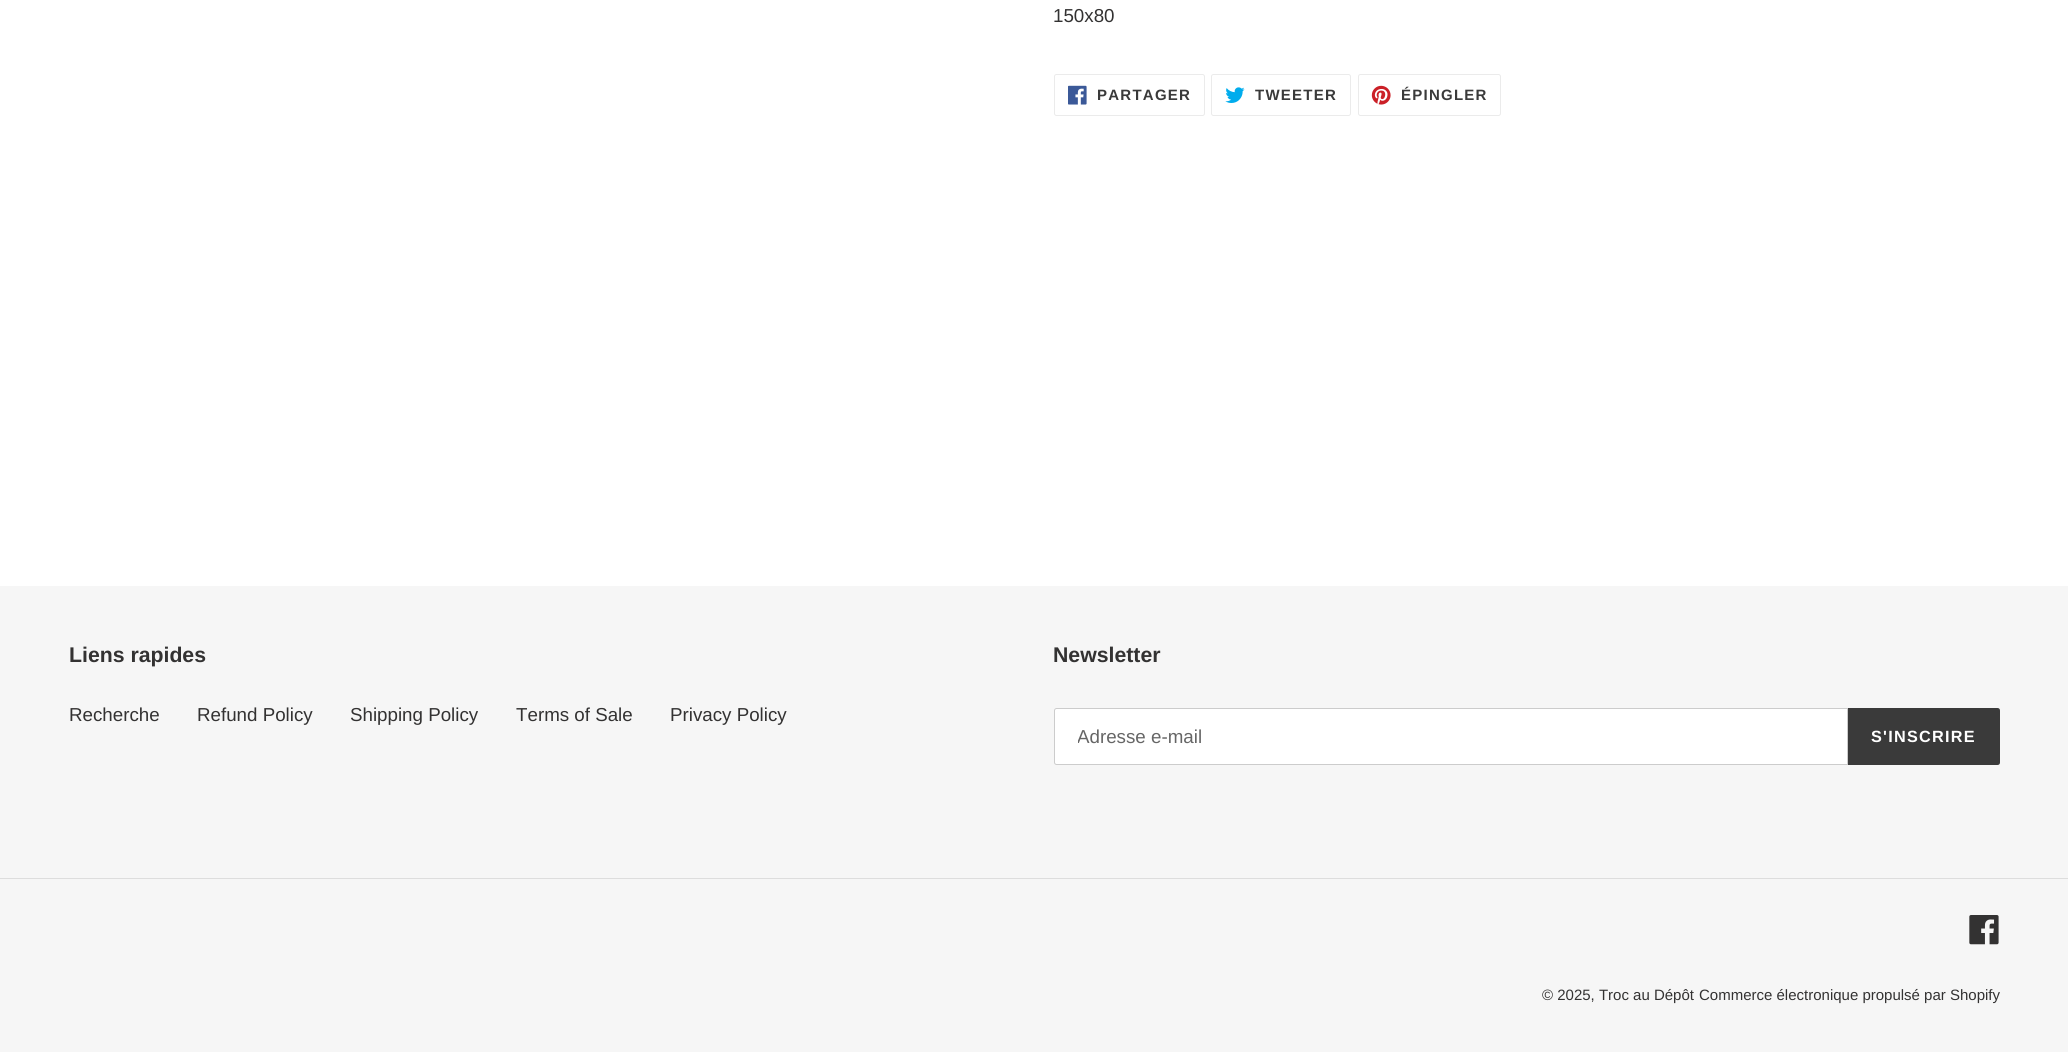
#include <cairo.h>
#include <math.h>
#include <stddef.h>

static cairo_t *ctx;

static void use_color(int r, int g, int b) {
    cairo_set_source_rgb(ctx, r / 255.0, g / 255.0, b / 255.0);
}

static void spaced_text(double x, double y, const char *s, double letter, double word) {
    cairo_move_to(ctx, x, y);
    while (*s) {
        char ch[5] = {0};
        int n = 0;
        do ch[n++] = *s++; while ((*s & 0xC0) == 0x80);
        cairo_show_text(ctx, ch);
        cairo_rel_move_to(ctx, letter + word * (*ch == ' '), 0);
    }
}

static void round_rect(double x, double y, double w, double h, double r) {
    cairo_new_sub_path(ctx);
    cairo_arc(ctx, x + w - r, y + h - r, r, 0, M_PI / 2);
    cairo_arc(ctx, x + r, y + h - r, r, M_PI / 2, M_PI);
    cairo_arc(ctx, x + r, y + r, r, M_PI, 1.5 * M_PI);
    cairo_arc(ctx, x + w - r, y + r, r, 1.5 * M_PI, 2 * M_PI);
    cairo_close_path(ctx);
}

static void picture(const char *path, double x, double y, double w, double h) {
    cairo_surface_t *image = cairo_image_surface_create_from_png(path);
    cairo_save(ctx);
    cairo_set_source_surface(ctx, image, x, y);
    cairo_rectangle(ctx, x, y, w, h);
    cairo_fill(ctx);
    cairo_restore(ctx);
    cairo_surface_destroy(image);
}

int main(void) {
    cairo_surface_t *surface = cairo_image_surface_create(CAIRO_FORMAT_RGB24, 2068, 1052);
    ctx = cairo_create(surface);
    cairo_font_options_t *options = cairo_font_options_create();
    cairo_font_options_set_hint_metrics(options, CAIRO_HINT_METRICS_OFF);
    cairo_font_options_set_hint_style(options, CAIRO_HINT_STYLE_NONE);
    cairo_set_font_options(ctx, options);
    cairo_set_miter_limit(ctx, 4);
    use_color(255, 255, 255);
    cairo_paint(ctx);
    cairo_select_font_face(ctx, "Liberation Sans", CAIRO_FONT_SLANT_NORMAL, CAIRO_FONT_WEIGHT_NORMAL);
    cairo_set_font_size(ctx, 18.75);
    use_color(51, 50, 50);
    cairo_move_to(ctx, 1053, 22);
    cairo_show_text(ctx, "150x80");
    round_rect(1054.5, 74.5, 150, 41, 2);
    use_color(235, 235, 235);
    cairo_set_line_width(ctx, 1);
    cairo_stroke(ctx);
    picture("img1.png", 1068, 85, 19, 20);
    cairo_select_font_face(ctx, "Liberation Sans", CAIRO_FONT_SLANT_NORMAL, CAIRO_FONT_WEIGHT_BOLD);
    cairo_set_font_size(ctx, 15);
    use_color(58, 58, 58);
    spaced_text(1097, 100, "PARTAGER", 1.25, 0);
    round_rect(1211.5, 74.5, 139, 41, 2);
    use_color(235, 235, 235);
    cairo_stroke(ctx);
    picture("img2.png", 1225, 87, 20, 16);
    use_color(58, 58, 58);
    spaced_text(1255, 100, "TWEETER", 1.25, 0);
    round_rect(1358.5, 74.5, 142, 41, 2);
    use_color(235, 235, 235);
    cairo_stroke(ctx);
    picture("img3.png", 1371, 85, 20, 20);
    use_color(58, 58, 58);
    spaced_text(1401, 100, "ÉPINGLER", 1.25, 0);
    use_color(246, 246, 246);
    cairo_rectangle(ctx, 0, 586, 2068, 466);
    cairo_fill(ctx);
    cairo_set_font_size(ctx, 21.25);
    use_color(51, 50, 50);
    cairo_move_to(ctx, 69, 662);
    cairo_show_text(ctx, "Liens rapides");
    cairo_select_font_face(ctx, "Liberation Sans", CAIRO_FONT_SLANT_NORMAL, CAIRO_FONT_WEIGHT_NORMAL);
    cairo_set_font_size(ctx, 18.75);
    cairo_move_to(ctx, 69, 721);
    cairo_show_text(ctx, "Recherche");
    cairo_move_to(ctx, 197, 721);
    cairo_show_text(ctx, "Refund Policy");
    cairo_move_to(ctx, 350, 721);
    cairo_show_text(ctx, "Shipping Policy");
    cairo_move_to(ctx, 516, 721);
    cairo_show_text(ctx, "Terms of Sale");
    cairo_move_to(ctx, 670, 721);
    cairo_show_text(ctx, "Privacy Policy");
    cairo_select_font_face(ctx, "Liberation Sans", CAIRO_FONT_SLANT_NORMAL, CAIRO_FONT_WEIGHT_BOLD);
    cairo_set_font_size(ctx, 21.25);
    cairo_move_to(ctx, 1053, 662);
    cairo_show_text(ctx, "Newsletter");
    use_color(255, 255, 255);
    cairo_new_path(ctx);
    cairo_move_to(ctx, 1056.5, 708.5);
    cairo_line_to(ctx, 1847.5, 708.5);
    cairo_line_to(ctx, 1847.5, 764.5);
    cairo_line_to(ctx, 1056.5, 764.5);
    cairo_curve_to(ctx, 1055.5, 764.5, 1054.5, 763.5, 1054.5, 762.5);
    cairo_line_to(ctx, 1054.5, 710.5);
    cairo_curve_to(ctx, 1054.5, 709.5, 1055.5, 708.5, 1056.5, 708.5);
    cairo_close_path(ctx);
    cairo_fill_preserve(ctx);
    use_color(204, 204, 204);
    cairo_stroke(ctx);
    cairo_save(ctx);
    cairo_rectangle(ctx, 1078, 725, 746, 21);
    cairo_clip(ctx);
    cairo_select_font_face(ctx, "Liberation Sans", CAIRO_FONT_SLANT_NORMAL, CAIRO_FONT_WEIGHT_NORMAL);
    cairo_set_font_size(ctx, 18.75);
    use_color(102, 102, 102);
    cairo_move_to(ctx, 1077, 743);
    cairo_show_text(ctx, "Adresse e-mail");
    cairo_restore(ctx);
    use_color(58, 58, 58);
    cairo_new_path(ctx);
    cairo_move_to(ctx, 1848, 708);
    cairo_line_to(ctx, 1997.5, 708);
    cairo_curve_to(ctx, 1999, 708, 2000, 709, 2000, 710.5);
    cairo_line_to(ctx, 2000, 762.5);
    cairo_curve_to(ctx, 2000, 764, 1999, 765, 1997.5, 765);
    cairo_line_to(ctx, 1848, 765);
    cairo_close_path(ctx);
    cairo_fill(ctx);
    cairo_set_font_size(ctx, 16.25);
    use_color(255, 255, 255);
    spaced_text(1871, 742, "S'INSCRIRE", 1.25, 0);
    use_color(221, 221, 221);
    cairo_rectangle(ctx, 0, 878, 2068, 1);
    cairo_fill(ctx);
    picture("img4.png", 1969, 915, 30, 30);
    cairo_select_font_face(ctx, "Liberation Sans", CAIRO_FONT_SLANT_NORMAL, CAIRO_FONT_WEIGHT_NORMAL);
    cairo_set_font_size(ctx, 15);
    use_color(51, 50, 50);
    cairo_move_to(ctx, 1542, 1000);
    cairo_show_text(ctx, "© 2025, Troc au Dépôt");
    cairo_move_to(ctx, 1699, 1000);
    cairo_show_text(ctx, "Commerce électronique propulsé par Shopify");
    cairo_surface_write_to_png(surface, "result.png");
    cairo_font_options_destroy(options);
    cairo_destroy(ctx);
    cairo_surface_destroy(surface);
    return 0;
}
